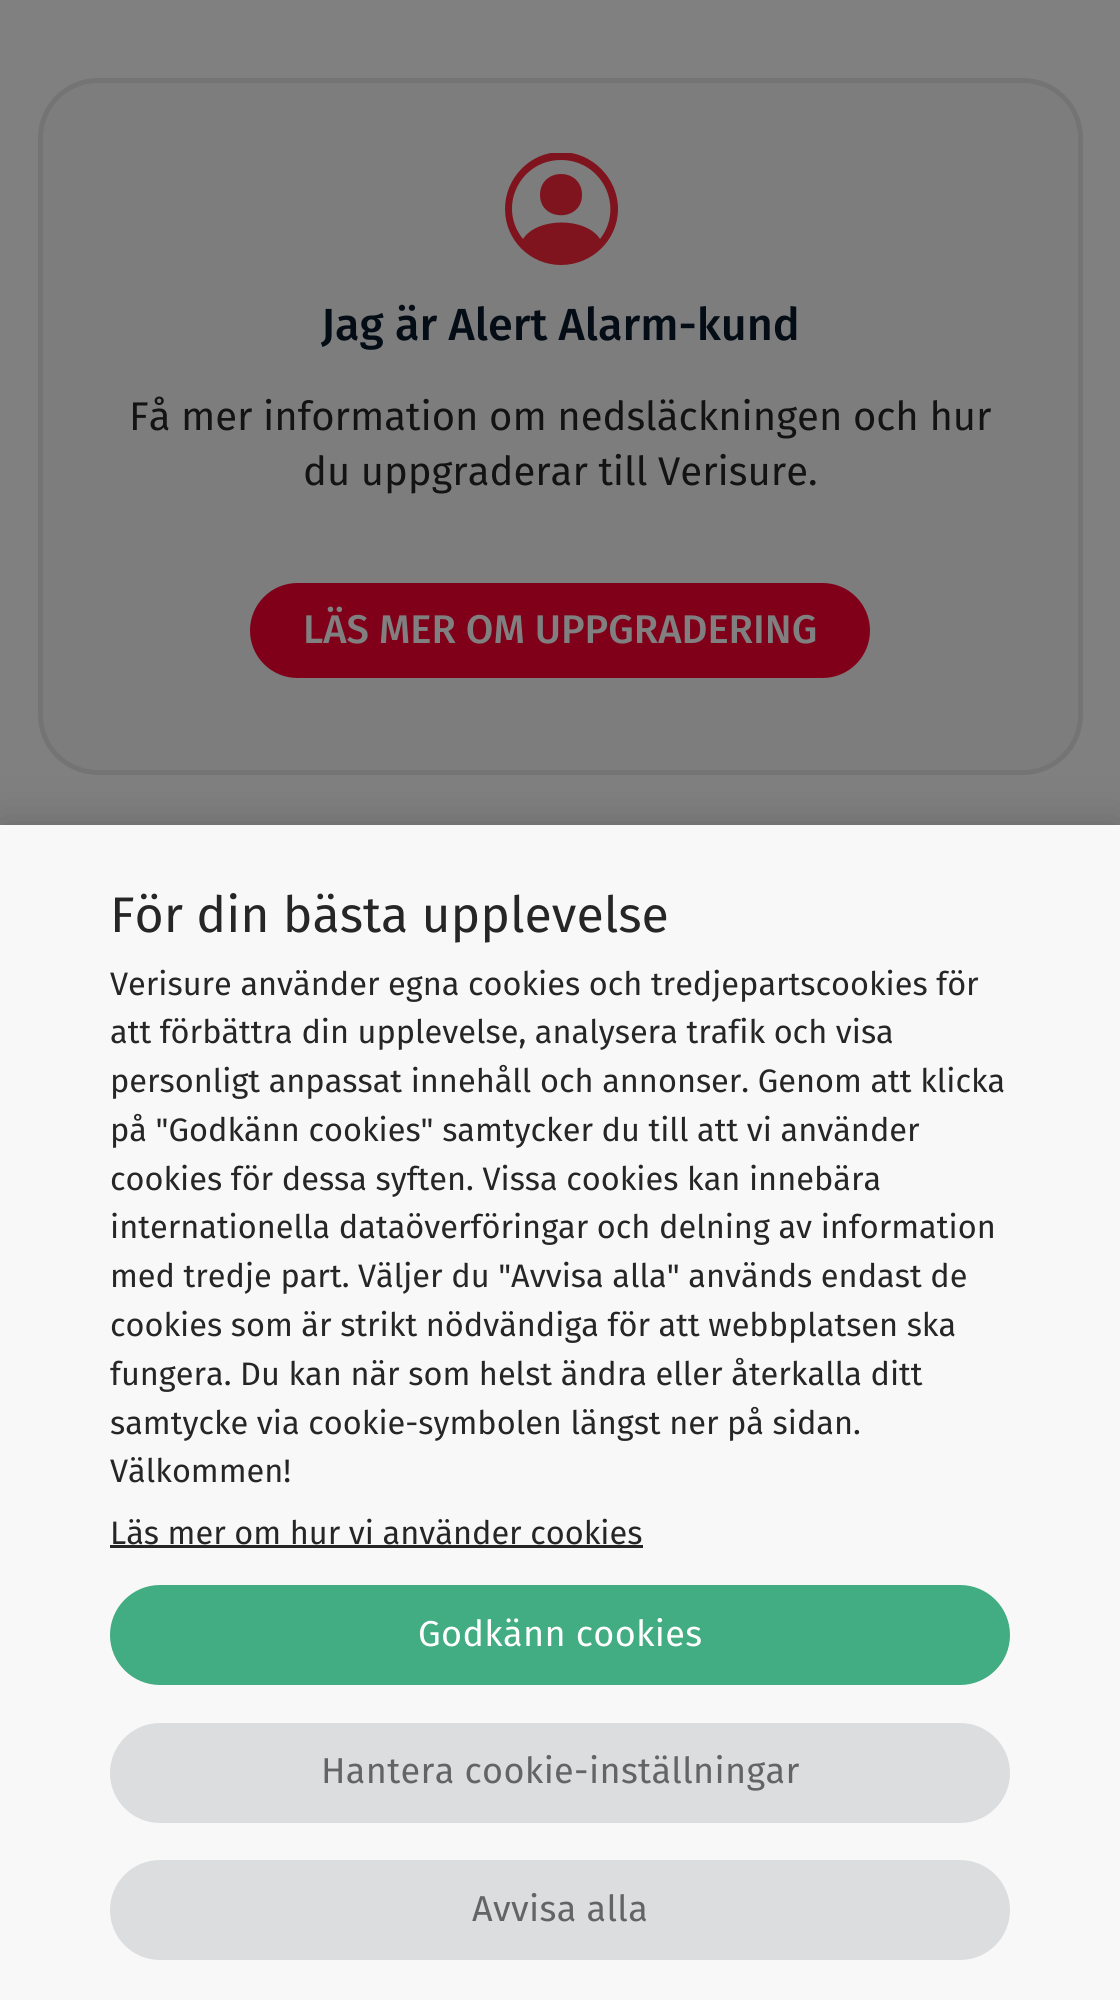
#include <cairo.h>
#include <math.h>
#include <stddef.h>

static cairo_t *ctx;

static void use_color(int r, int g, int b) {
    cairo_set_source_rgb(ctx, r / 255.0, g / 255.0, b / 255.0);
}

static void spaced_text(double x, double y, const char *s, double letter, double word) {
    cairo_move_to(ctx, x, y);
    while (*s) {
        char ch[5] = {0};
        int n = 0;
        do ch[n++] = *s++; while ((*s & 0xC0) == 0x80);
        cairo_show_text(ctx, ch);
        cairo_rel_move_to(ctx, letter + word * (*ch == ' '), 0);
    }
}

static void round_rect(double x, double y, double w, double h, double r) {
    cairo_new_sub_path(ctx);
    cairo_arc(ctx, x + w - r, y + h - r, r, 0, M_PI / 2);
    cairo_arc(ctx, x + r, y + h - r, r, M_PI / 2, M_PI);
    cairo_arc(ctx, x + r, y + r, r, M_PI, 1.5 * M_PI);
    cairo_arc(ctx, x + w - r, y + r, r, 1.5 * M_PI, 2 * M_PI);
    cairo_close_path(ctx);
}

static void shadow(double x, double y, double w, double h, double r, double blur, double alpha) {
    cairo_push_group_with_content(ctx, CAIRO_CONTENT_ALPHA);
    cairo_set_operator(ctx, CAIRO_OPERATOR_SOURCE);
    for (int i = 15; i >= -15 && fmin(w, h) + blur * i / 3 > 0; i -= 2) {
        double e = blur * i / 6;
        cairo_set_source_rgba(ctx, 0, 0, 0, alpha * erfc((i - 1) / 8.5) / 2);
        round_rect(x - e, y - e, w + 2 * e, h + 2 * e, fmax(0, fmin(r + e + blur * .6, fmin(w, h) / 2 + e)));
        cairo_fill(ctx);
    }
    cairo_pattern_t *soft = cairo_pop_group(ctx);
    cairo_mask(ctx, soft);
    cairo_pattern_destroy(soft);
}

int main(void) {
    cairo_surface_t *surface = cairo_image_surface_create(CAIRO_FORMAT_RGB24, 1120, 2000);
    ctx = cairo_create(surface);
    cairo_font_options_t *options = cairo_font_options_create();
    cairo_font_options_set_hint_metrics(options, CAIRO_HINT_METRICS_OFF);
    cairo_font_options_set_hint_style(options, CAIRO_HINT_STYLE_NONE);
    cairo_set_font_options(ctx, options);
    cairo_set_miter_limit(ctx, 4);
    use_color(128, 128, 128);
    cairo_paint(ctx);
    use_color(125, 125, 125);
    round_rect(40.5, 80.5, 1040, 692, 57.5);
    cairo_fill_preserve(ctx);
    use_color(116, 116, 116);
    cairo_set_line_width(ctx, 5);
    cairo_stroke(ctx);
    use_color(127, 20, 30);
    cairo_new_path(ctx);
    cairo_move_to(ctx, 582, 195);
    cairo_curve_to(ctx, 582, 222, 540, 222, 540, 195);
    cairo_curve_to(ctx, 540, 167, 582, 167, 582, 195);
    cairo_fill(ctx);
    cairo_save(ctx);
    cairo_rectangle(ctx, 505, 153, 113, 112);
    cairo_clip(ctx);
    cairo_set_fill_rule(ctx, CAIRO_FILL_RULE_EVEN_ODD);
    cairo_new_path(ctx);
    cairo_move_to(ctx, 505, 209);
    cairo_curve_to(ctx, 505, 178, 530, 152, 561, 152);
    cairo_curve_to(ctx, 592, 152, 618, 178, 618, 209);
    cairo_curve_to(ctx, 618, 240, 592, 265, 561, 265);
    cairo_curve_to(ctx, 530, 265, 505, 240, 505, 209);
    cairo_move_to(ctx, 561, 160);
    cairo_curve_to(ctx, 520, 160, 497, 207, 523, 239);
    cairo_curve_to(ctx, 537, 217, 586, 217, 600, 239);
    cairo_curve_to(ctx, 625, 207, 602, 160, 561, 160);
    cairo_fill(ctx);
    cairo_restore(ctx);
    cairo_select_font_face(ctx, "Fira Sans Medium", CAIRO_FONT_SLANT_NORMAL, CAIRO_FONT_WEIGHT_NORMAL);
    cairo_set_font_size(ctx, 45);
    use_color(4, 13, 22);
    cairo_move_to(ctx, 321, 340);
    cairo_show_text(ctx, "Jag är Alert Alarm-kund");
    cairo_select_font_face(ctx, "Fira Sans", CAIRO_FONT_SLANT_NORMAL, CAIRO_FONT_WEIGHT_NORMAL);
    cairo_set_font_size(ctx, 40);
    use_color(19, 19, 19);
    cairo_move_to(ctx, 129, 430);
    cairo_show_text(ctx, "Få mer information om nedsläckningen och hur");
    cairo_move_to(ctx, 303, 485);
    cairo_show_text(ctx, "du uppgraderar till Verisure.");
    use_color(128, 0, 26);
    round_rect(250, 583, 620, 95, 47.5);
    cairo_fill(ctx);
    cairo_select_font_face(ctx, "Fira Sans Medium", CAIRO_FONT_SLANT_NORMAL, CAIRO_FONT_WEIGHT_NORMAL);
    use_color(128, 128, 128);
    cairo_move_to(ctx, 303, 643);
    cairo_show_text(ctx, "LÄS MER OM UPPGRADERING");
    use_color(0, 0, 0);
    shadow(0, 825, 1120, 1175, 0, 22.5, 0.2);
    use_color(248, 248, 248);
    cairo_rectangle(ctx, 0, 825, 1120, 1175);
    cairo_fill(ctx);
    cairo_select_font_face(ctx, "Fira Sans", CAIRO_FONT_SLANT_NORMAL, CAIRO_FONT_WEIGHT_NORMAL);
    cairo_set_font_size(ctx, 50);
    use_color(38, 38, 38);
    cairo_move_to(ctx, 110, 932);
    cairo_show_text(ctx, "För din bästa upplevelse");
    cairo_set_font_size(ctx, 32.5);
    cairo_move_to(ctx, 110, 995);
    cairo_show_text(ctx, "Verisure använder egna cookies och tredjepartscookies för");
    cairo_move_to(ctx, 110, 1043);
    cairo_show_text(ctx, "att förbättra din upplevelse, analysera trafik och visa");
    cairo_move_to(ctx, 110, 1092);
    cairo_show_text(ctx, "personligt anpassat innehåll och annonser. Genom att klicka");
    cairo_move_to(ctx, 110, 1141);
    cairo_show_text(ctx, "på \"Godkänn cookies\" samtycker du till att vi använder");
    cairo_move_to(ctx, 110, 1190);
    cairo_show_text(ctx, "cookies för dessa syften. Vissa cookies kan innebära");
    cairo_move_to(ctx, 110, 1238);
    cairo_show_text(ctx, "internationella dataöverföringar och delning av information");
    cairo_move_to(ctx, 110, 1287);
    cairo_show_text(ctx, "med tredje part. Väljer du \"Avvisa alla\" används endast de");
    cairo_move_to(ctx, 110, 1336);
    cairo_show_text(ctx, "cookies som är strikt nödvändiga för att webbplatsen ska");
    cairo_move_to(ctx, 110, 1385);
    cairo_show_text(ctx, "fungera. Du kan när som helst ändra eller återkalla ditt");
    cairo_move_to(ctx, 110, 1434);
    cairo_show_text(ctx, "samtycke via cookie-symbolen längst ner på sidan.");
    cairo_move_to(ctx, 110, 1482);
    cairo_show_text(ctx, "Välkommen!");
    cairo_move_to(ctx, 110, 1544);
    cairo_show_text(ctx, "Läs mer om hur vi använder cookies");
    cairo_rectangle(ctx, 110, 1545, 533, 3);
    cairo_fill(ctx);
    use_color(66, 172, 130);
    round_rect(111.5, 1586.5, 897, 97, 48.5);
    cairo_fill_preserve(ctx);
    cairo_set_line_width(ctx, 3);
    cairo_stroke(ctx);
    cairo_set_font_size(ctx, 36);
    use_color(255, 255, 255);
    spaced_text(418, 1646, "Godkänn cookies", 0.35, 0);
    use_color(220, 221, 222);
    round_rect(110, 1723, 900, 100, 50);
    cairo_fill(ctx);
    use_color(99, 100, 102);
    spaced_text(321, 1783, "Hantera cookie-inställningar", 0.35, 0);
    use_color(220, 221, 222);
    round_rect(110, 1860, 900, 100, 50);
    cairo_fill(ctx);
    use_color(99, 100, 102);
    spaced_text(472, 1921, "Avvisa alla", 0.35, 0);
    cairo_surface_write_to_png(surface, "result.png");
    cairo_font_options_destroy(options);
    cairo_destroy(ctx);
    cairo_surface_destroy(surface);
    return 0;
}
